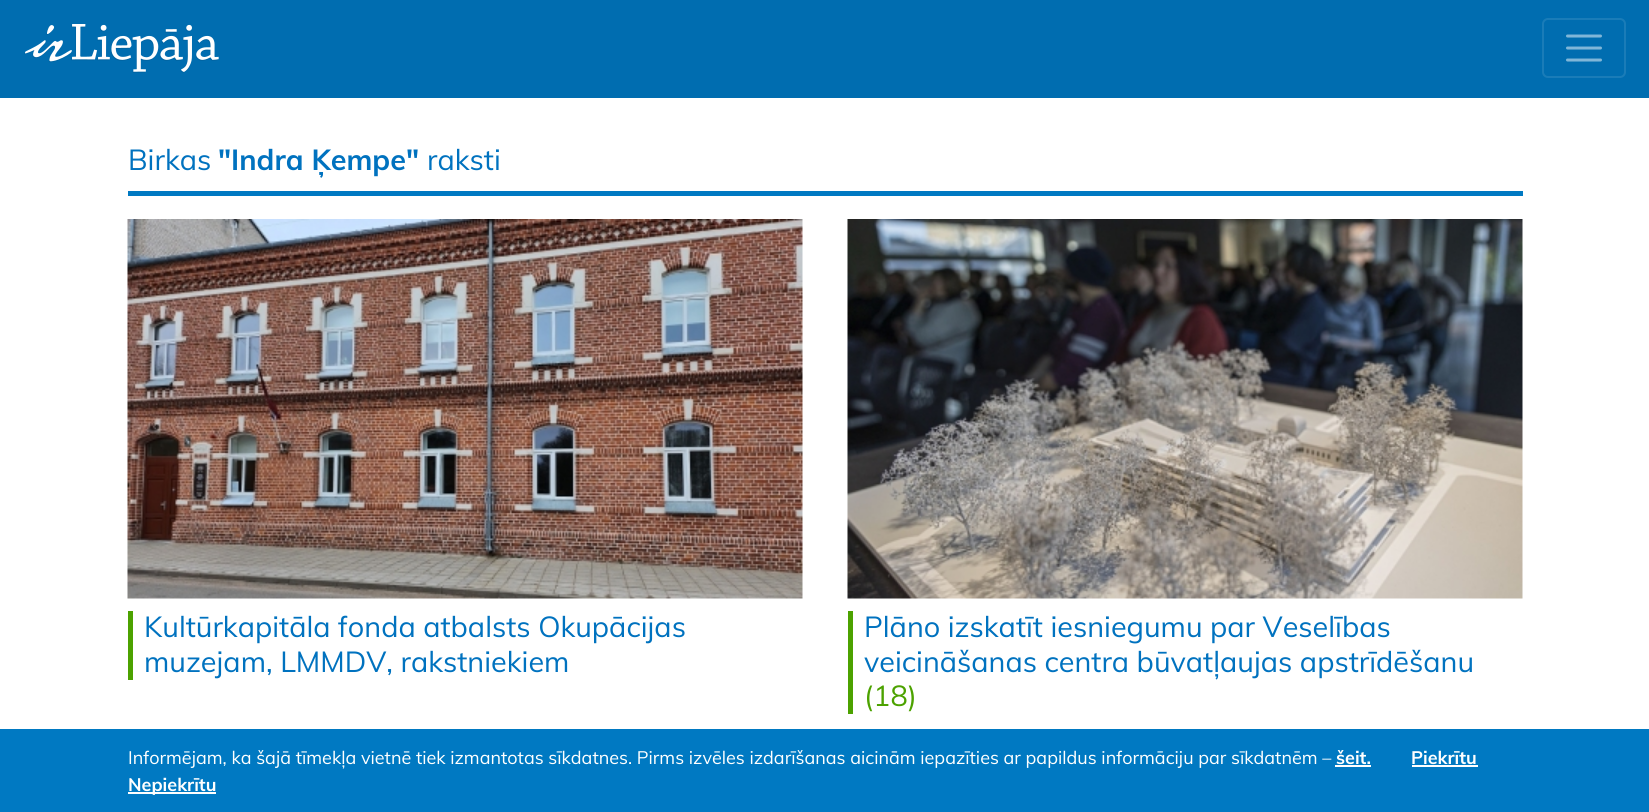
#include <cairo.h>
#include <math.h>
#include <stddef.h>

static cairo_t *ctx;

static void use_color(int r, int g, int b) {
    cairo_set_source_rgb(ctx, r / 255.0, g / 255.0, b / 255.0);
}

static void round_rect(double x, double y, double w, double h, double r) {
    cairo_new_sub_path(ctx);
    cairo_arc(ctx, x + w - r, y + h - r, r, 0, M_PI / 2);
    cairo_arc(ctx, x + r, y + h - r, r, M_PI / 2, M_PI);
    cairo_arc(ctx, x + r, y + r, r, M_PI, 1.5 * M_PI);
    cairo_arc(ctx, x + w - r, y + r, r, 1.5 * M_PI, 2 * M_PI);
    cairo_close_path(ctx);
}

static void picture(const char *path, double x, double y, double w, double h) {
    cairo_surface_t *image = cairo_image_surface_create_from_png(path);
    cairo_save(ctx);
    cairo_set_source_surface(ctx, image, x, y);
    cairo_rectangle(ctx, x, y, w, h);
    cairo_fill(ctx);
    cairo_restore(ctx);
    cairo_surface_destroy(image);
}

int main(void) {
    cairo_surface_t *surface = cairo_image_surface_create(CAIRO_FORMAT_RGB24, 1649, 812);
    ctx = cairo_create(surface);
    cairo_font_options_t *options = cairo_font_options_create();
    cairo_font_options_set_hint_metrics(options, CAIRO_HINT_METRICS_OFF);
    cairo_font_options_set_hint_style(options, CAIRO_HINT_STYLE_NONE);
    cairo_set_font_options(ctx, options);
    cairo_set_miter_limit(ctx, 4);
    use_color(255, 255, 255);
    cairo_paint(ctx);
    use_color(0, 109, 176);
    cairo_rectangle(ctx, 0, 0, 1649, 98);
    cairo_fill(ctx);
    picture("img1.png", 24, 24, 195, 49);
    round_rect(1543, 19, 82, 58, 5);
    use_color(26, 124, 184);
    cairo_stroke(ctx);
    cairo_new_path(ctx);
    cairo_move_to(ctx, 1567.5, 36);
    cairo_line_to(ctx, 1600.5, 36);
    cairo_move_to(ctx, 1567.5, 48);
    cairo_line_to(ctx, 1600.5, 48);
    cairo_move_to(ctx, 1567.5, 60);
    cairo_line_to(ctx, 1600.5, 60);
    use_color(128, 182, 216);
    cairo_set_line_width(ctx, 3);
    cairo_set_line_cap(ctx, CAIRO_LINE_CAP_ROUND);
    cairo_stroke(ctx);
    use_color(0, 121, 194);
    cairo_rectangle(ctx, 128, 191, 1395, 5);
    cairo_fill(ctx);
    cairo_select_font_face(ctx, "Muli", CAIRO_FONT_SLANT_NORMAL, CAIRO_FONT_WEIGHT_NORMAL);
    cairo_set_font_size(ctx, 28.8);
    use_color(0, 114, 191);
    cairo_move_to(ctx, 128, 170);
    cairo_show_text(ctx, "Birkas");
    cairo_select_font_face(ctx, "Muli", CAIRO_FONT_SLANT_NORMAL, CAIRO_FONT_WEIGHT_BOLD);
    cairo_move_to(ctx, 218, 170);
    cairo_show_text(ctx, "\"Indra Ķempe\"");
    cairo_select_font_face(ctx, "Muli", CAIRO_FONT_SLANT_NORMAL, CAIRO_FONT_WEIGHT_NORMAL);
    cairo_move_to(ctx, 427, 170);
    cairo_show_text(ctx, "raksti");
    picture("img2.png", 127, 219, 676, 380);
    use_color(76, 162, 0);
    cairo_rectangle(ctx, 128, 611, 5, 69);
    cairo_fill(ctx);
    use_color(0, 114, 191);
    cairo_move_to(ctx, 144, 637);
    cairo_show_text(ctx, "Kultūrkapitāla fonda atbalsts Okupācijas");
    cairo_move_to(ctx, 144, 672);
    cairo_show_text(ctx, "muzejam, LMMDV, rakstniekiem");
    picture("img3.png", 847, 219, 676, 380);
    use_color(76, 162, 0);
    cairo_rectangle(ctx, 848, 611, 5, 103);
    cairo_fill(ctx);
    use_color(0, 114, 191);
    cairo_move_to(ctx, 864, 637);
    cairo_show_text(ctx, "Plāno izskatīt iesniegumu par Veselības");
    cairo_move_to(ctx, 864, 672);
    cairo_show_text(ctx, "veicināšanas centra būvatļaujas apstrīdēšanu");
    use_color(76, 162, 0);
    cairo_move_to(ctx, 864, 706);
    cairo_show_text(ctx, "(18)");
    use_color(0, 121, 194);
    cairo_rectangle(ctx, 0, 729, 1649, 83);
    cairo_fill(ctx);
    cairo_set_font_size(ctx, 18);
    use_color(255, 255, 255);
    cairo_move_to(ctx, 128, 764);
    cairo_show_text(ctx, "Informējam, ka šajā tīmekļa vietnē tiek izmantotas sīkdatnes. Pirms izvēles izdarīšanas aicinām iepazīties ar papildus informāciju par sīkdatnēm –");
    cairo_select_font_face(ctx, "Muli", CAIRO_FONT_SLANT_NORMAL, CAIRO_FONT_WEIGHT_BOLD);
    cairo_move_to(ctx, 1336, 764);
    cairo_show_text(ctx, "šeit.");
    cairo_rectangle(ctx, 1335, 765, 36, 2);
    cairo_fill(ctx);
    cairo_move_to(ctx, 1411, 764);
    cairo_show_text(ctx, "Piekrītu");
    cairo_rectangle(ctx, 1412, 765, 66, 2);
    cairo_fill(ctx);
    cairo_rectangle(ctx, 128, 792, 88, 2);
    cairo_fill(ctx);
    cairo_move_to(ctx, 128, 791);
    cairo_show_text(ctx, "Nepiekrītu");
    cairo_surface_write_to_png(surface, "result.png");
    cairo_font_options_destroy(options);
    cairo_destroy(ctx);
    cairo_surface_destroy(surface);
    return 0;
}
